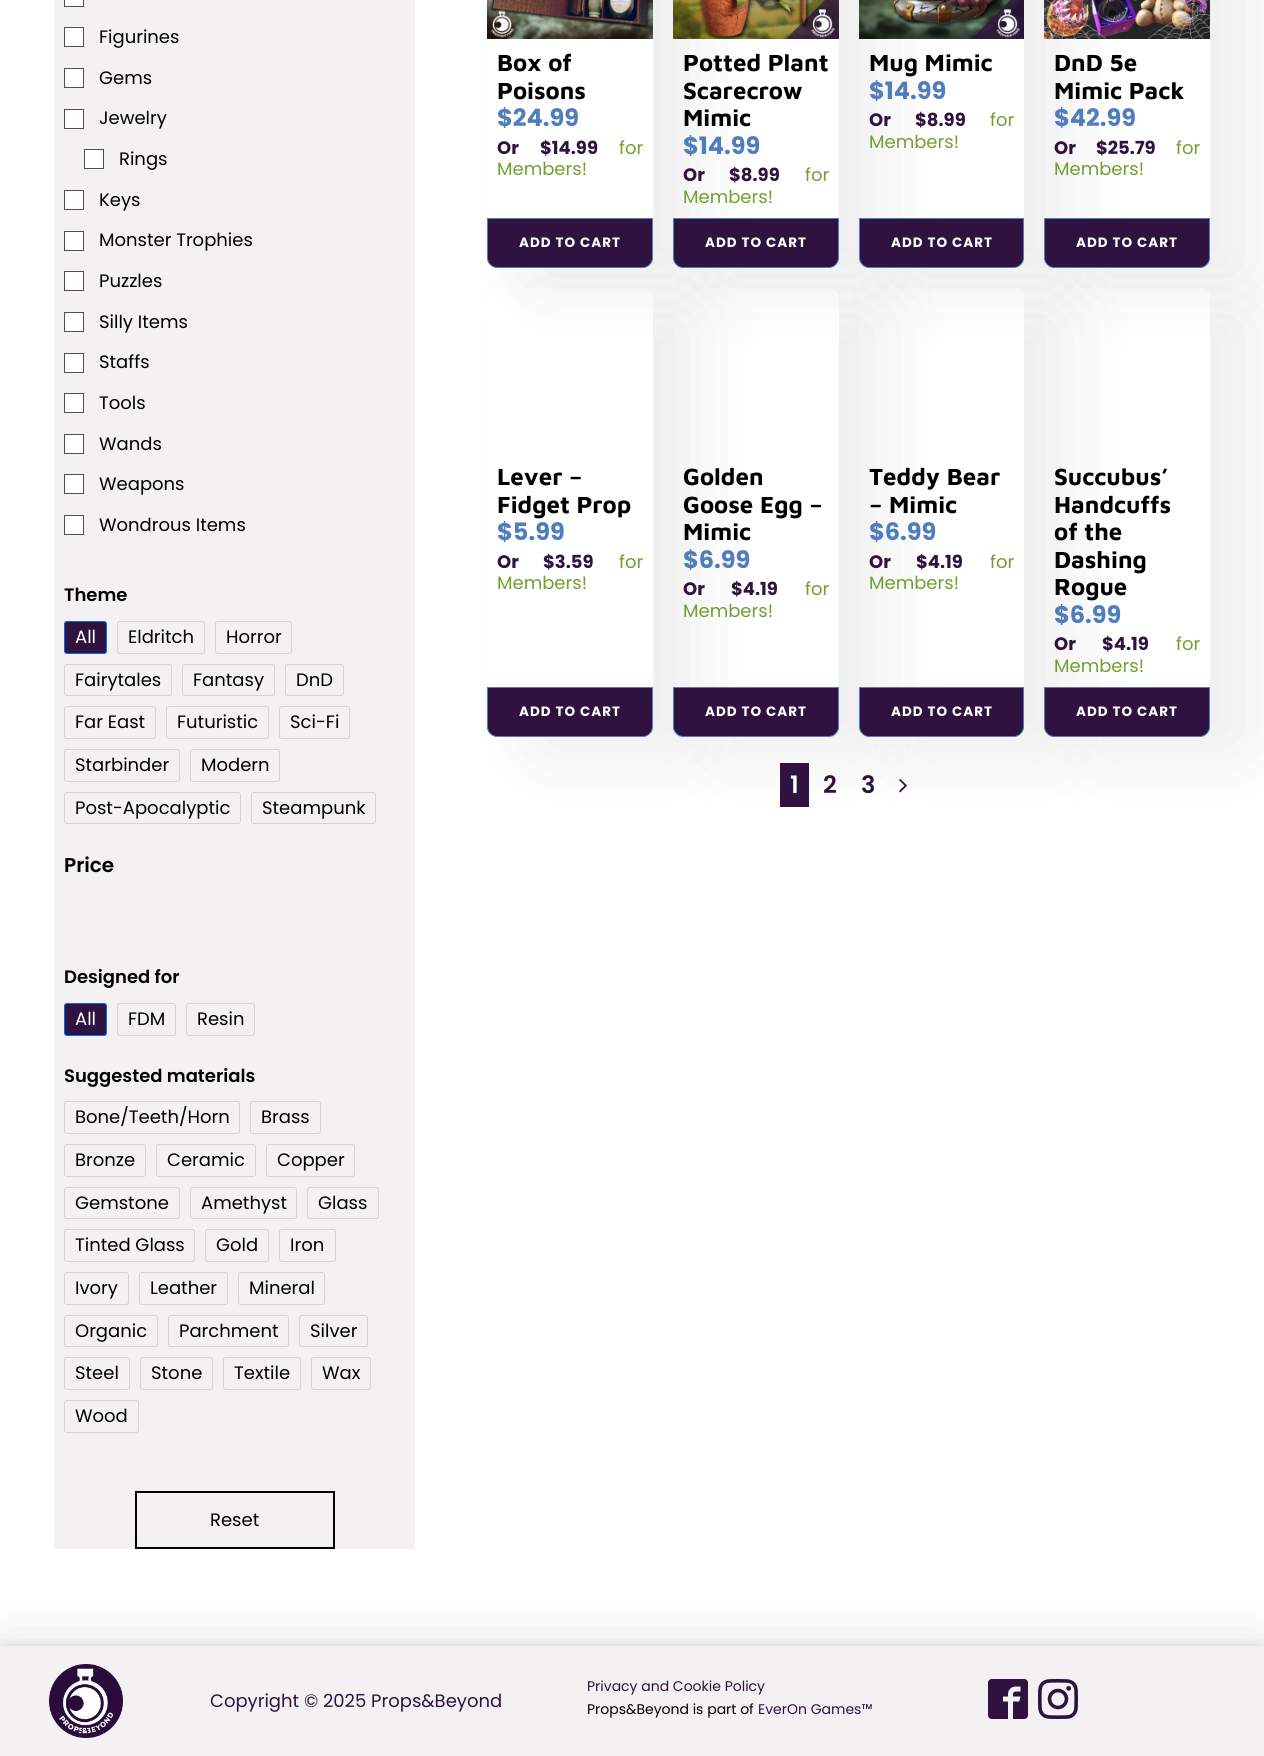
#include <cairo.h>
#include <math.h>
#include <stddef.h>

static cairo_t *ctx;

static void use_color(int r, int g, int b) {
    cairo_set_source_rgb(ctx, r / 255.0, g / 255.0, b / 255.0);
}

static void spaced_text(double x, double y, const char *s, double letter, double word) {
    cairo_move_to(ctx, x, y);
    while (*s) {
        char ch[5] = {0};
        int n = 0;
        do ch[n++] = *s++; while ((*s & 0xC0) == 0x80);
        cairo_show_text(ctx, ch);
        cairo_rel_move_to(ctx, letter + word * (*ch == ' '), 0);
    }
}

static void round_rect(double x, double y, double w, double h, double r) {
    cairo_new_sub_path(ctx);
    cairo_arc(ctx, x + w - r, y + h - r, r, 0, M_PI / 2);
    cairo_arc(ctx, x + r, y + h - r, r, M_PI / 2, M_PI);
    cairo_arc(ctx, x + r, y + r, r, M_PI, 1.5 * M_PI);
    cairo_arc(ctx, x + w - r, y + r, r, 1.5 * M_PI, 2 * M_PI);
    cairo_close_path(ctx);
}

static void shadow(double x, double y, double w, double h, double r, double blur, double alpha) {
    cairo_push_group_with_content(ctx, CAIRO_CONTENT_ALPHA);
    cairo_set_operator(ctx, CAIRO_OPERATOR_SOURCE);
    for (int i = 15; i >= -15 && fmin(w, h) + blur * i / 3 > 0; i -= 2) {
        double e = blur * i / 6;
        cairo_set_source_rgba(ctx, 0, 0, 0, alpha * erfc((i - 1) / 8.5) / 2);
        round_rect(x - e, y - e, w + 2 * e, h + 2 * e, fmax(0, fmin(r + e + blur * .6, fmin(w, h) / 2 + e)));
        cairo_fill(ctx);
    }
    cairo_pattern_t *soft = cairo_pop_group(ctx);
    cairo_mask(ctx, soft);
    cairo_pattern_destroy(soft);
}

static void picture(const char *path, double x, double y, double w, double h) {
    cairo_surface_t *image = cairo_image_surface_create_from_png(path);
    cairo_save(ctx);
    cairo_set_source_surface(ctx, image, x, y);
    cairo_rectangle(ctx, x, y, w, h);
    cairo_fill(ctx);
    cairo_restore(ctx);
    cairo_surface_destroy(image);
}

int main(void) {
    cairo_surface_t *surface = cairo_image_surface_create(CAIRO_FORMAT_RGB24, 1264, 1756);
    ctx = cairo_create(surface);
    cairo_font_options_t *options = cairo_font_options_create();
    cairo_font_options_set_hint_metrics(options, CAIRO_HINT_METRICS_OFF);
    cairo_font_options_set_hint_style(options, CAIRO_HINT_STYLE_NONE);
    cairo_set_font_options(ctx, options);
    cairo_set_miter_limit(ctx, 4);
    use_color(255, 255, 255);
    cairo_paint(ctx);
    use_color(0, 0, 0);
    shadow(0, 1646, 1264, 110, 0, 40, 0.07);
    use_color(243, 241, 241);
    cairo_rectangle(ctx, 54, 0, 361, 1549);
    cairo_fill(ctx);
    use_color(255, 255, 255);
    cairo_rectangle(ctx, 64.5, -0.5, 19, 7);
    cairo_fill_preserve(ctx);
    use_color(79, 79, 79);
    cairo_set_line_width(ctx, 1);
    cairo_stroke(ctx);
    use_color(255, 255, 255);
    cairo_rectangle(ctx, 64.5, 27.5, 19, 19);
    cairo_fill_preserve(ctx);
    use_color(79, 79, 79);
    cairo_stroke(ctx);
    cairo_select_font_face(ctx, "Poppins", CAIRO_FONT_SLANT_NORMAL, CAIRO_FONT_WEIGHT_NORMAL);
    cairo_set_font_size(ctx, 18);
    use_color(0, 0, 0);
    cairo_move_to(ctx, 99, 43);
    cairo_show_text(ctx, "Figurines");
    use_color(255, 255, 255);
    cairo_rectangle(ctx, 64.5, 68.5, 19, 19);
    cairo_fill_preserve(ctx);
    use_color(79, 79, 79);
    cairo_stroke(ctx);
    use_color(0, 0, 0);
    cairo_move_to(ctx, 99, 84);
    cairo_show_text(ctx, "Gems");
    use_color(255, 255, 255);
    cairo_rectangle(ctx, 64.5, 109.5, 19, 19);
    cairo_fill_preserve(ctx);
    use_color(79, 79, 79);
    cairo_stroke(ctx);
    use_color(0, 0, 0);
    cairo_move_to(ctx, 99, 124);
    cairo_show_text(ctx, "Jewelry");
    use_color(255, 255, 255);
    cairo_rectangle(ctx, 84.5, 149.5, 19, 19);
    cairo_fill_preserve(ctx);
    use_color(79, 79, 79);
    cairo_stroke(ctx);
    use_color(0, 0, 0);
    cairo_move_to(ctx, 119, 165);
    cairo_show_text(ctx, "Rings");
    use_color(255, 255, 255);
    cairo_rectangle(ctx, 64.5, 190.5, 19, 19);
    cairo_fill_preserve(ctx);
    use_color(79, 79, 79);
    cairo_stroke(ctx);
    use_color(0, 0, 0);
    cairo_move_to(ctx, 99, 206);
    cairo_show_text(ctx, "Keys");
    use_color(255, 255, 255);
    cairo_rectangle(ctx, 64.5, 231.5, 19, 19);
    cairo_fill_preserve(ctx);
    use_color(79, 79, 79);
    cairo_stroke(ctx);
    use_color(0, 0, 0);
    cairo_move_to(ctx, 99, 246);
    cairo_show_text(ctx, "Monster Trophies");
    use_color(255, 255, 255);
    cairo_rectangle(ctx, 64.5, 271.5, 19, 19);
    cairo_fill_preserve(ctx);
    use_color(79, 79, 79);
    cairo_stroke(ctx);
    use_color(0, 0, 0);
    cairo_move_to(ctx, 99, 287);
    cairo_show_text(ctx, "Puzzles");
    use_color(255, 255, 255);
    cairo_rectangle(ctx, 64.5, 312.5, 19, 19);
    cairo_fill_preserve(ctx);
    use_color(79, 79, 79);
    cairo_stroke(ctx);
    use_color(0, 0, 0);
    cairo_move_to(ctx, 99, 328);
    cairo_show_text(ctx, "Silly Items");
    use_color(255, 255, 255);
    cairo_rectangle(ctx, 64.5, 353.5, 19, 19);
    cairo_fill_preserve(ctx);
    use_color(79, 79, 79);
    cairo_stroke(ctx);
    use_color(0, 0, 0);
    cairo_move_to(ctx, 99, 368);
    cairo_show_text(ctx, "Staffs");
    use_color(255, 255, 255);
    cairo_rectangle(ctx, 64.5, 393.5, 19, 19);
    cairo_fill_preserve(ctx);
    use_color(79, 79, 79);
    cairo_stroke(ctx);
    use_color(0, 0, 0);
    cairo_move_to(ctx, 99, 409);
    cairo_show_text(ctx, "Tools");
    use_color(255, 255, 255);
    cairo_rectangle(ctx, 64.5, 434.5, 19, 19);
    cairo_fill_preserve(ctx);
    use_color(79, 79, 79);
    cairo_stroke(ctx);
    use_color(0, 0, 0);
    cairo_move_to(ctx, 99, 450);
    cairo_show_text(ctx, "Wands");
    use_color(255, 255, 255);
    cairo_rectangle(ctx, 64.5, 474.5, 19, 19);
    cairo_fill_preserve(ctx);
    use_color(79, 79, 79);
    cairo_stroke(ctx);
    use_color(0, 0, 0);
    cairo_move_to(ctx, 99, 490);
    cairo_show_text(ctx, "Weapons");
    use_color(255, 255, 255);
    cairo_rectangle(ctx, 64.5, 515.5, 19, 19);
    cairo_fill_preserve(ctx);
    use_color(79, 79, 79);
    cairo_stroke(ctx);
    use_color(0, 0, 0);
    cairo_move_to(ctx, 99, 531);
    cairo_show_text(ctx, "Wondrous Items");
    cairo_select_font_face(ctx, "Poppins SemiBold", CAIRO_FONT_SLANT_NORMAL, CAIRO_FONT_WEIGHT_NORMAL);
    cairo_move_to(ctx, 64, 601);
    cairo_show_text(ctx, "Theme");
    use_color(47, 18, 64);
    round_rect(64.5, 621.5, 42, 32, 2.5);
    cairo_fill_preserve(ctx);
    use_color(0, 106, 254);
    cairo_stroke(ctx);
    cairo_select_font_face(ctx, "Poppins", CAIRO_FONT_SLANT_NORMAL, CAIRO_FONT_WEIGHT_NORMAL);
    use_color(255, 255, 255);
    cairo_move_to(ctx, 75, 643);
    cairo_show_text(ctx, "All");
    round_rect(117.5, 621.5, 87, 32, 2.5);
    use_color(212, 212, 212);
    cairo_stroke(ctx);
    use_color(0, 0, 0);
    cairo_move_to(ctx, 128, 643);
    cairo_show_text(ctx, "Eldritch");
    round_rect(215.5, 621.5, 76, 32, 2.5);
    use_color(212, 212, 212);
    cairo_stroke(ctx);
    use_color(0, 0, 0);
    cairo_move_to(ctx, 226, 643);
    cairo_show_text(ctx, "Horror");
    round_rect(64.5, 664.5, 107, 31, 2.5);
    use_color(212, 212, 212);
    cairo_stroke(ctx);
    use_color(0, 0, 0);
    cairo_move_to(ctx, 75, 686);
    cairo_show_text(ctx, "Fairytales");
    round_rect(182.5, 664.5, 92, 31, 2.5);
    use_color(212, 212, 212);
    cairo_stroke(ctx);
    use_color(0, 0, 0);
    cairo_move_to(ctx, 193, 686);
    cairo_show_text(ctx, "Fantasy");
    round_rect(285.5, 664.5, 58, 31, 2.5);
    use_color(212, 212, 212);
    cairo_stroke(ctx);
    use_color(0, 0, 0);
    cairo_move_to(ctx, 296, 686);
    cairo_show_text(ctx, "DnD");
    round_rect(64.5, 706.5, 91, 32, 2.5);
    use_color(212, 212, 212);
    cairo_stroke(ctx);
    use_color(0, 0, 0);
    cairo_move_to(ctx, 75, 728);
    cairo_show_text(ctx, "Far East");
    round_rect(166.5, 706.5, 102, 32, 2.5);
    use_color(212, 212, 212);
    cairo_stroke(ctx);
    use_color(0, 0, 0);
    cairo_move_to(ctx, 177, 728);
    cairo_show_text(ctx, "Futuristic");
    round_rect(279.5, 706.5, 70, 32, 2.5);
    use_color(212, 212, 212);
    cairo_stroke(ctx);
    use_color(0, 0, 0);
    cairo_move_to(ctx, 290, 728);
    cairo_show_text(ctx, "Sci-Fi");
    round_rect(64.5, 749.5, 115, 32, 2.5);
    use_color(212, 212, 212);
    cairo_stroke(ctx);
    use_color(0, 0, 0);
    cairo_move_to(ctx, 75, 771);
    cairo_show_text(ctx, "Starbinder");
    round_rect(190.5, 749.5, 89, 32, 2.5);
    use_color(212, 212, 212);
    cairo_stroke(ctx);
    use_color(0, 0, 0);
    cairo_move_to(ctx, 201, 771);
    cairo_show_text(ctx, "Modern");
    round_rect(64.5, 792.5, 176, 31, 2.5);
    use_color(212, 212, 212);
    cairo_stroke(ctx);
    use_color(0, 0, 0);
    cairo_move_to(ctx, 75, 814);
    cairo_show_text(ctx, "Post-Apocalyptic");
    round_rect(251.5, 792.5, 124, 31, 2.5);
    use_color(212, 212, 212);
    cairo_stroke(ctx);
    use_color(0, 0, 0);
    cairo_move_to(ctx, 262, 814);
    cairo_show_text(ctx, "Steampunk");
    cairo_select_font_face(ctx, "Poppins SemiBold", CAIRO_FONT_SLANT_NORMAL, CAIRO_FONT_WEIGHT_NORMAL);
    cairo_set_font_size(ctx, 20);
    cairo_move_to(ctx, 64, 872);
    cairo_show_text(ctx, "Price");
    cairo_set_font_size(ctx, 18);
    cairo_move_to(ctx, 64, 983);
    cairo_show_text(ctx, "Designed for");
    use_color(47, 18, 64);
    round_rect(64.5, 1003.5, 42, 32, 2.5);
    cairo_fill_preserve(ctx);
    use_color(0, 106, 254);
    cairo_stroke(ctx);
    cairo_select_font_face(ctx, "Poppins", CAIRO_FONT_SLANT_NORMAL, CAIRO_FONT_WEIGHT_NORMAL);
    use_color(255, 255, 255);
    cairo_move_to(ctx, 75, 1025);
    cairo_show_text(ctx, "All");
    round_rect(117.5, 1003.5, 58, 32, 2.5);
    use_color(212, 212, 212);
    cairo_stroke(ctx);
    use_color(0, 0, 0);
    cairo_move_to(ctx, 128, 1025);
    cairo_show_text(ctx, "FDM");
    round_rect(186.5, 1003.5, 68, 32, 2.5);
    use_color(212, 212, 212);
    cairo_stroke(ctx);
    use_color(0, 0, 0);
    cairo_move_to(ctx, 197, 1025);
    cairo_show_text(ctx, "Resin");
    cairo_select_font_face(ctx, "Poppins SemiBold", CAIRO_FONT_SLANT_NORMAL, CAIRO_FONT_WEIGHT_NORMAL);
    cairo_move_to(ctx, 64, 1082);
    cairo_show_text(ctx, "Suggested materials");
    round_rect(64.5, 1101.5, 175, 32, 2.5);
    use_color(212, 212, 212);
    cairo_stroke(ctx);
    cairo_select_font_face(ctx, "Poppins", CAIRO_FONT_SLANT_NORMAL, CAIRO_FONT_WEIGHT_NORMAL);
    use_color(0, 0, 0);
    cairo_move_to(ctx, 75, 1123);
    cairo_show_text(ctx, "Bone/Teeth/Horn");
    round_rect(250.5, 1101.5, 70, 32, 2.5);
    use_color(212, 212, 212);
    cairo_stroke(ctx);
    use_color(0, 0, 0);
    cairo_move_to(ctx, 261, 1123);
    cairo_show_text(ctx, "Brass");
    round_rect(64.5, 1144.5, 81, 32, 2.5);
    use_color(212, 212, 212);
    cairo_stroke(ctx);
    use_color(0, 0, 0);
    cairo_move_to(ctx, 75, 1166);
    cairo_show_text(ctx, "Bronze");
    round_rect(156.5, 1144.5, 99, 32, 2.5);
    use_color(212, 212, 212);
    cairo_stroke(ctx);
    use_color(0, 0, 0);
    cairo_move_to(ctx, 167, 1166);
    cairo_show_text(ctx, "Ceramic");
    round_rect(266.5, 1144.5, 88, 32, 2.5);
    use_color(212, 212, 212);
    cairo_stroke(ctx);
    use_color(0, 0, 0);
    cairo_move_to(ctx, 277, 1166);
    cairo_show_text(ctx, "Copper");
    round_rect(64.5, 1187.5, 115, 31, 2.5);
    use_color(212, 212, 212);
    cairo_stroke(ctx);
    use_color(0, 0, 0);
    cairo_move_to(ctx, 75, 1209);
    cairo_show_text(ctx, "Gemstone");
    round_rect(190.5, 1187.5, 106, 31, 2.5);
    use_color(212, 212, 212);
    cairo_stroke(ctx);
    use_color(0, 0, 0);
    cairo_move_to(ctx, 201, 1209);
    cairo_show_text(ctx, "Amethyst");
    round_rect(307.5, 1187.5, 71, 31, 2.5);
    use_color(212, 212, 212);
    cairo_stroke(ctx);
    use_color(0, 0, 0);
    cairo_move_to(ctx, 318, 1209);
    cairo_show_text(ctx, "Glass");
    round_rect(64.5, 1229.5, 130, 32, 2.5);
    use_color(212, 212, 212);
    cairo_stroke(ctx);
    use_color(0, 0, 0);
    cairo_move_to(ctx, 75, 1251);
    cairo_show_text(ctx, "Tinted Glass");
    round_rect(205.5, 1229.5, 63, 32, 2.5);
    use_color(212, 212, 212);
    cairo_stroke(ctx);
    use_color(0, 0, 0);
    cairo_move_to(ctx, 216, 1251);
    cairo_show_text(ctx, "Gold");
    round_rect(279.5, 1229.5, 56, 32, 2.5);
    use_color(212, 212, 212);
    cairo_stroke(ctx);
    use_color(0, 0, 0);
    cairo_move_to(ctx, 290, 1251);
    cairo_show_text(ctx, "Iron");
    round_rect(64.5, 1272.5, 64, 32, 2.5);
    use_color(212, 212, 212);
    cairo_stroke(ctx);
    use_color(0, 0, 0);
    cairo_move_to(ctx, 75, 1294);
    cairo_show_text(ctx, "Ivory");
    round_rect(139.5, 1272.5, 88, 32, 2.5);
    use_color(212, 212, 212);
    cairo_stroke(ctx);
    use_color(0, 0, 0);
    cairo_move_to(ctx, 150, 1294);
    cairo_show_text(ctx, "Leather");
    round_rect(238.5, 1272.5, 86, 32, 2.5);
    use_color(212, 212, 212);
    cairo_stroke(ctx);
    use_color(0, 0, 0);
    cairo_move_to(ctx, 249, 1294);
    cairo_show_text(ctx, "Mineral");
    round_rect(64.5, 1315.5, 93, 31, 2.5);
    use_color(212, 212, 212);
    cairo_stroke(ctx);
    use_color(0, 0, 0);
    cairo_move_to(ctx, 75, 1337);
    cairo_show_text(ctx, "Organic");
    round_rect(168.5, 1315.5, 120, 31, 2.5);
    use_color(212, 212, 212);
    cairo_stroke(ctx);
    use_color(0, 0, 0);
    cairo_move_to(ctx, 179, 1337);
    cairo_show_text(ctx, "Parchment");
    round_rect(299.5, 1315.5, 68, 31, 2.5);
    use_color(212, 212, 212);
    cairo_stroke(ctx);
    use_color(0, 0, 0);
    cairo_move_to(ctx, 310, 1337);
    cairo_show_text(ctx, "Silver");
    round_rect(64.5, 1357.5, 65, 32, 2.5);
    use_color(212, 212, 212);
    cairo_stroke(ctx);
    use_color(0, 0, 0);
    cairo_move_to(ctx, 75, 1379);
    cairo_show_text(ctx, "Steel");
    round_rect(140.5, 1357.5, 72, 32, 2.5);
    use_color(212, 212, 212);
    cairo_stroke(ctx);
    use_color(0, 0, 0);
    cairo_move_to(ctx, 151, 1379);
    cairo_show_text(ctx, "Stone");
    round_rect(223.5, 1357.5, 77, 32, 2.5);
    use_color(212, 212, 212);
    cairo_stroke(ctx);
    use_color(0, 0, 0);
    cairo_move_to(ctx, 234, 1379);
    cairo_show_text(ctx, "Textile");
    round_rect(311.5, 1357.5, 59, 32, 2.5);
    use_color(212, 212, 212);
    cairo_stroke(ctx);
    use_color(0, 0, 0);
    cairo_move_to(ctx, 322, 1379);
    cairo_show_text(ctx, "Wax");
    round_rect(64.5, 1400.5, 74, 32, 2.5);
    use_color(212, 212, 212);
    cairo_stroke(ctx);
    use_color(0, 0, 0);
    cairo_move_to(ctx, 75, 1422);
    cairo_show_text(ctx, "Wood");
    cairo_rectangle(ctx, 136, 1492, 198, 56);
    cairo_set_line_width(ctx, 2);
    cairo_stroke(ctx);
    cairo_move_to(ctx, 210, 1526);
    cairo_show_text(ctx, "Reset");
    cairo_save(ctx);
    cairo_set_fill_rule(ctx, CAIRO_FILL_RULE_EVEN_ODD);
    cairo_new_path(ctx);
    cairo_move_to(ctx, 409, 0);
    cairo_line_to(ctx, 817, 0);
    cairo_line_to(ctx, 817, 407);
    cairo_line_to(ctx, 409, 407);
    cairo_close_path(ctx);
    cairo_move_to(ctx, 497, -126);
    cairo_line_to(ctx, 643, -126);
    cairo_curve_to(ctx, 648.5, -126, 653, -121.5, 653, -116);
    cairo_line_to(ctx, 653, 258);
    cairo_curve_to(ctx, 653, 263.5, 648.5, 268, 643, 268);
    cairo_line_to(ctx, 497, 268);
    cairo_curve_to(ctx, 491.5, 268, 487, 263.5, 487, 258);
    cairo_line_to(ctx, 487, -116);
    cairo_curve_to(ctx, 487, -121.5, 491.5, -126, 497, -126);
    cairo_close_path(ctx);
    cairo_clip(ctx);
    use_color(0, 0, 0);
    shadow(530, -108, 166, 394, 10, 40, 0.07);
    cairo_restore(ctx);
    picture("img1.png", 487, 0, 166, 39);
    cairo_select_font_face(ctx, "Maven Pro", CAIRO_FONT_SLANT_NORMAL, CAIRO_FONT_WEIGHT_BOLD);
    cairo_set_font_size(ctx, 24);
    cairo_move_to(ctx, 497, 71);
    cairo_show_text(ctx, "Box of");
    cairo_move_to(ctx, 497, 99);
    cairo_show_text(ctx, "Poisons");
    cairo_select_font_face(ctx, "Poppins", CAIRO_FONT_SLANT_NORMAL, CAIRO_FONT_WEIGHT_BOLD);
    use_color(80, 125, 188);
    cairo_move_to(ctx, 497, 126);
    cairo_show_text(ctx, "$24.99");
    cairo_set_font_size(ctx, 18);
    use_color(47, 18, 64);
    cairo_move_to(ctx, 497, 154);
    cairo_show_text(ctx, "Or");
    cairo_move_to(ctx, 540, 154);
    cairo_show_text(ctx, "$14.99");
    cairo_select_font_face(ctx, "Poppins", CAIRO_FONT_SLANT_NORMAL, CAIRO_FONT_WEIGHT_NORMAL);
    use_color(114, 159, 50);
    cairo_move_to(ctx, 619, 154);
    cairo_show_text(ctx, "for");
    cairo_move_to(ctx, 497, 175);
    cairo_show_text(ctx, "Members!");
    use_color(47, 18, 64);
    cairo_new_path(ctx);
    cairo_move_to(ctx, 487.5, 218.5);
    cairo_line_to(ctx, 652.5, 218.5);
    cairo_line_to(ctx, 652.5, 258);
    cairo_curve_to(ctx, 652.5, 263, 648, 267.5, 643, 267.5);
    cairo_line_to(ctx, 497, 267.5);
    cairo_curve_to(ctx, 492, 267.5, 487.5, 263, 487.5, 258);
    cairo_close_path(ctx);
    cairo_fill_preserve(ctx);
    use_color(80, 125, 188);
    cairo_set_line_width(ctx, 1);
    cairo_stroke(ctx);
    cairo_select_font_face(ctx, "Poppins", CAIRO_FONT_SLANT_NORMAL, CAIRO_FONT_WEIGHT_BOLD);
    cairo_set_font_size(ctx, 13.5);
    use_color(255, 255, 255);
    spaced_text(519, 247, "ADD TO CART", 1, 0);
    cairo_save(ctx);
    cairo_set_fill_rule(ctx, CAIRO_FILL_RULE_EVEN_ODD);
    cairo_new_path(ctx);
    cairo_move_to(ctx, 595, 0);
    cairo_line_to(ctx, 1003, 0);
    cairo_line_to(ctx, 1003, 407);
    cairo_line_to(ctx, 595, 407);
    cairo_close_path(ctx);
    cairo_move_to(ctx, 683, -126);
    cairo_line_to(ctx, 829, -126);
    cairo_curve_to(ctx, 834.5, -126, 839, -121.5, 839, -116);
    cairo_line_to(ctx, 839, 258);
    cairo_curve_to(ctx, 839, 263.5, 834.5, 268, 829, 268);
    cairo_line_to(ctx, 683, 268);
    cairo_curve_to(ctx, 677.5, 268, 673, 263.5, 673, 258);
    cairo_line_to(ctx, 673, -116);
    cairo_curve_to(ctx, 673, -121.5, 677.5, -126, 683, -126);
    cairo_close_path(ctx);
    cairo_clip(ctx);
    use_color(0, 0, 0);
    shadow(716, -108, 166, 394, 10, 40, 0.07);
    cairo_restore(ctx);
    picture("img2.png", 673, 0, 166, 39);
    cairo_select_font_face(ctx, "Maven Pro", CAIRO_FONT_SLANT_NORMAL, CAIRO_FONT_WEIGHT_BOLD);
    cairo_set_font_size(ctx, 24);
    use_color(0, 0, 0);
    cairo_move_to(ctx, 683, 71);
    cairo_show_text(ctx, "Potted Plant");
    cairo_move_to(ctx, 683, 99);
    cairo_show_text(ctx, "Scarecrow");
    cairo_move_to(ctx, 683, 126);
    cairo_show_text(ctx, "Mimic");
    cairo_select_font_face(ctx, "Poppins", CAIRO_FONT_SLANT_NORMAL, CAIRO_FONT_WEIGHT_BOLD);
    use_color(80, 125, 188);
    cairo_move_to(ctx, 683, 154);
    cairo_show_text(ctx, "$14.99");
    cairo_set_font_size(ctx, 18);
    use_color(47, 18, 64);
    cairo_move_to(ctx, 683, 181);
    cairo_show_text(ctx, "Or");
    cairo_move_to(ctx, 729, 181);
    cairo_show_text(ctx, "$8.99");
    cairo_select_font_face(ctx, "Poppins", CAIRO_FONT_SLANT_NORMAL, CAIRO_FONT_WEIGHT_NORMAL);
    use_color(114, 159, 50);
    cairo_move_to(ctx, 805, 181);
    cairo_show_text(ctx, "for");
    cairo_move_to(ctx, 683, 203);
    cairo_show_text(ctx, "Members!");
    use_color(47, 18, 64);
    cairo_new_path(ctx);
    cairo_move_to(ctx, 673.5, 218.5);
    cairo_line_to(ctx, 838.5, 218.5);
    cairo_line_to(ctx, 838.5, 258);
    cairo_curve_to(ctx, 838.5, 263, 834, 267.5, 829, 267.5);
    cairo_line_to(ctx, 683, 267.5);
    cairo_curve_to(ctx, 678, 267.5, 673.5, 263, 673.5, 258);
    cairo_close_path(ctx);
    cairo_fill_preserve(ctx);
    use_color(80, 125, 188);
    cairo_stroke(ctx);
    cairo_select_font_face(ctx, "Poppins", CAIRO_FONT_SLANT_NORMAL, CAIRO_FONT_WEIGHT_BOLD);
    cairo_set_font_size(ctx, 13.5);
    use_color(255, 255, 255);
    spaced_text(705, 247, "ADD TO CART", 1, 0);
    cairo_save(ctx);
    cairo_set_fill_rule(ctx, CAIRO_FILL_RULE_EVEN_ODD);
    cairo_new_path(ctx);
    cairo_move_to(ctx, 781, 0);
    cairo_line_to(ctx, 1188, 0);
    cairo_line_to(ctx, 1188, 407);
    cairo_line_to(ctx, 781, 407);
    cairo_close_path(ctx);
    cairo_move_to(ctx, 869, -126);
    cairo_line_to(ctx, 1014, -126);
    cairo_curve_to(ctx, 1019.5, -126, 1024, -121.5, 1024, -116);
    cairo_line_to(ctx, 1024, 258);
    cairo_curve_to(ctx, 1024, 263.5, 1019.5, 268, 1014, 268);
    cairo_line_to(ctx, 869, 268);
    cairo_curve_to(ctx, 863.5, 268, 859, 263.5, 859, 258);
    cairo_line_to(ctx, 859, -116);
    cairo_curve_to(ctx, 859, -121.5, 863.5, -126, 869, -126);
    cairo_close_path(ctx);
    cairo_clip(ctx);
    use_color(0, 0, 0);
    shadow(902, -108, 165, 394, 10, 40, 0.07);
    cairo_restore(ctx);
    picture("img3.png", 859, 0, 165, 39);
    cairo_select_font_face(ctx, "Maven Pro", CAIRO_FONT_SLANT_NORMAL, CAIRO_FONT_WEIGHT_BOLD);
    cairo_set_font_size(ctx, 24);
    use_color(0, 0, 0);
    cairo_move_to(ctx, 869, 71);
    cairo_show_text(ctx, "Mug Mimic");
    cairo_select_font_face(ctx, "Poppins", CAIRO_FONT_SLANT_NORMAL, CAIRO_FONT_WEIGHT_BOLD);
    use_color(80, 125, 188);
    cairo_move_to(ctx, 869, 99);
    cairo_show_text(ctx, "$14.99");
    cairo_set_font_size(ctx, 18);
    use_color(47, 18, 64);
    cairo_move_to(ctx, 869, 126);
    cairo_show_text(ctx, "Or");
    cairo_move_to(ctx, 915, 126);
    cairo_show_text(ctx, "$8.99");
    cairo_select_font_face(ctx, "Poppins", CAIRO_FONT_SLANT_NORMAL, CAIRO_FONT_WEIGHT_NORMAL);
    use_color(114, 159, 50);
    cairo_move_to(ctx, 990, 126);
    cairo_show_text(ctx, "for");
    cairo_move_to(ctx, 869, 148);
    cairo_show_text(ctx, "Members!");
    use_color(47, 18, 64);
    cairo_new_path(ctx);
    cairo_move_to(ctx, 859.5, 218.5);
    cairo_line_to(ctx, 1023.5, 218.5);
    cairo_line_to(ctx, 1023.5, 258);
    cairo_curve_to(ctx, 1023.5, 263, 1019, 267.5, 1014, 267.5);
    cairo_line_to(ctx, 869, 267.5);
    cairo_curve_to(ctx, 864, 267.5, 859.5, 263, 859.5, 258);
    cairo_close_path(ctx);
    cairo_fill_preserve(ctx);
    use_color(80, 125, 188);
    cairo_stroke(ctx);
    cairo_select_font_face(ctx, "Poppins", CAIRO_FONT_SLANT_NORMAL, CAIRO_FONT_WEIGHT_BOLD);
    cairo_set_font_size(ctx, 13.5);
    use_color(255, 255, 255);
    spaced_text(891, 247, "ADD TO CART", 1, 0);
    cairo_save(ctx);
    cairo_set_fill_rule(ctx, CAIRO_FILL_RULE_EVEN_ODD);
    cairo_new_path(ctx);
    cairo_move_to(ctx, 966, 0);
    cairo_line_to(ctx, 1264, 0);
    cairo_line_to(ctx, 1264, 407);
    cairo_line_to(ctx, 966, 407);
    cairo_close_path(ctx);
    cairo_move_to(ctx, 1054, -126);
    cairo_line_to(ctx, 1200, -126);
    cairo_curve_to(ctx, 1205.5, -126, 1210, -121.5, 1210, -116);
    cairo_line_to(ctx, 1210, 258);
    cairo_curve_to(ctx, 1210, 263.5, 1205.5, 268, 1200, 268);
    cairo_line_to(ctx, 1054, 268);
    cairo_curve_to(ctx, 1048.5, 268, 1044, 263.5, 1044, 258);
    cairo_line_to(ctx, 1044, -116);
    cairo_curve_to(ctx, 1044, -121.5, 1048.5, -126, 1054, -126);
    cairo_close_path(ctx);
    cairo_clip(ctx);
    use_color(0, 0, 0);
    shadow(1087, -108, 166, 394, 10, 40, 0.07);
    cairo_restore(ctx);
    picture("img4.png", 1044, 0, 166, 39);
    cairo_select_font_face(ctx, "Maven Pro", CAIRO_FONT_SLANT_NORMAL, CAIRO_FONT_WEIGHT_BOLD);
    cairo_set_font_size(ctx, 24);
    use_color(0, 0, 0);
    cairo_move_to(ctx, 1054, 71);
    cairo_show_text(ctx, "DnD 5e");
    cairo_move_to(ctx, 1054, 99);
    cairo_show_text(ctx, "Mimic Pack");
    cairo_select_font_face(ctx, "Poppins", CAIRO_FONT_SLANT_NORMAL, CAIRO_FONT_WEIGHT_BOLD);
    use_color(80, 125, 188);
    cairo_move_to(ctx, 1054, 126);
    cairo_show_text(ctx, "$42.99");
    cairo_set_font_size(ctx, 18);
    use_color(47, 18, 64);
    cairo_move_to(ctx, 1054, 154);
    cairo_show_text(ctx, "Or");
    cairo_move_to(ctx, 1096, 154);
    cairo_show_text(ctx, "$25.79");
    cairo_select_font_face(ctx, "Poppins", CAIRO_FONT_SLANT_NORMAL, CAIRO_FONT_WEIGHT_NORMAL);
    use_color(114, 159, 50);
    cairo_move_to(ctx, 1176, 154);
    cairo_show_text(ctx, "for");
    cairo_move_to(ctx, 1054, 175);
    cairo_show_text(ctx, "Members!");
    use_color(47, 18, 64);
    cairo_new_path(ctx);
    cairo_move_to(ctx, 1044.5, 218.5);
    cairo_line_to(ctx, 1209.5, 218.5);
    cairo_line_to(ctx, 1209.5, 258);
    cairo_curve_to(ctx, 1209.5, 263, 1205, 267.5, 1200, 267.5);
    cairo_line_to(ctx, 1054, 267.5);
    cairo_curve_to(ctx, 1049, 267.5, 1044.5, 263, 1044.5, 258);
    cairo_close_path(ctx);
    cairo_fill_preserve(ctx);
    use_color(80, 125, 188);
    cairo_stroke(ctx);
    cairo_select_font_face(ctx, "Poppins", CAIRO_FONT_SLANT_NORMAL, CAIRO_FONT_WEIGHT_BOLD);
    cairo_set_font_size(ctx, 13.5);
    use_color(255, 255, 255);
    spaced_text(1076, 247, "ADD TO CART", 1, 0);
    cairo_save(ctx);
    cairo_set_fill_rule(ctx, CAIRO_FILL_RULE_EVEN_ODD);
    cairo_new_path(ctx);
    cairo_move_to(ctx, 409, 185);
    cairo_line_to(ctx, 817, 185);
    cairo_line_to(ctx, 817, 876);
    cairo_line_to(ctx, 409, 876);
    cairo_close_path(ctx);
    cairo_move_to(ctx, 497, 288);
    cairo_line_to(ctx, 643, 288);
    cairo_curve_to(ctx, 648.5, 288, 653, 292.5, 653, 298);
    cairo_line_to(ctx, 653, 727);
    cairo_curve_to(ctx, 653, 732.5, 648.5, 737, 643, 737);
    cairo_line_to(ctx, 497, 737);
    cairo_curve_to(ctx, 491.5, 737, 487, 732.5, 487, 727);
    cairo_line_to(ctx, 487, 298);
    cairo_curve_to(ctx, 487, 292.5, 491.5, 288, 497, 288);
    cairo_close_path(ctx);
    cairo_clip(ctx);
    use_color(0, 0, 0);
    shadow(530, 306, 166, 449, 10, 40, 0.07);
    cairo_restore(ctx);
    cairo_select_font_face(ctx, "Maven Pro", CAIRO_FONT_SLANT_NORMAL, CAIRO_FONT_WEIGHT_BOLD);
    cairo_set_font_size(ctx, 24);
    use_color(0, 0, 0);
    cairo_move_to(ctx, 497, 485);
    cairo_show_text(ctx, "Lever –");
    cairo_move_to(ctx, 497, 513);
    cairo_show_text(ctx, "Fidget Prop");
    cairo_select_font_face(ctx, "Poppins", CAIRO_FONT_SLANT_NORMAL, CAIRO_FONT_WEIGHT_BOLD);
    use_color(80, 125, 188);
    cairo_move_to(ctx, 497, 540);
    cairo_show_text(ctx, "$5.99");
    cairo_set_font_size(ctx, 18);
    use_color(47, 18, 64);
    cairo_move_to(ctx, 497, 568);
    cairo_show_text(ctx, "Or");
    cairo_move_to(ctx, 543, 568);
    cairo_show_text(ctx, "$3.59");
    cairo_select_font_face(ctx, "Poppins", CAIRO_FONT_SLANT_NORMAL, CAIRO_FONT_WEIGHT_NORMAL);
    use_color(114, 159, 50);
    cairo_move_to(ctx, 619, 568);
    cairo_show_text(ctx, "for");
    cairo_move_to(ctx, 497, 589);
    cairo_show_text(ctx, "Members!");
    use_color(47, 18, 64);
    cairo_new_path(ctx);
    cairo_move_to(ctx, 487.5, 687.5);
    cairo_line_to(ctx, 652.5, 687.5);
    cairo_line_to(ctx, 652.5, 727);
    cairo_curve_to(ctx, 652.5, 732, 648, 736.5, 643, 736.5);
    cairo_line_to(ctx, 497, 736.5);
    cairo_curve_to(ctx, 492, 736.5, 487.5, 732, 487.5, 727);
    cairo_close_path(ctx);
    cairo_fill_preserve(ctx);
    use_color(80, 125, 188);
    cairo_stroke(ctx);
    cairo_select_font_face(ctx, "Poppins", CAIRO_FONT_SLANT_NORMAL, CAIRO_FONT_WEIGHT_BOLD);
    cairo_set_font_size(ctx, 13.5);
    use_color(255, 255, 255);
    spaced_text(519, 716, "ADD TO CART", 1, 0);
    cairo_save(ctx);
    cairo_set_fill_rule(ctx, CAIRO_FILL_RULE_EVEN_ODD);
    cairo_new_path(ctx);
    cairo_move_to(ctx, 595, 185);
    cairo_line_to(ctx, 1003, 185);
    cairo_line_to(ctx, 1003, 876);
    cairo_line_to(ctx, 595, 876);
    cairo_close_path(ctx);
    cairo_move_to(ctx, 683, 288);
    cairo_line_to(ctx, 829, 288);
    cairo_curve_to(ctx, 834.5, 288, 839, 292.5, 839, 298);
    cairo_line_to(ctx, 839, 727);
    cairo_curve_to(ctx, 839, 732.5, 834.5, 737, 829, 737);
    cairo_line_to(ctx, 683, 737);
    cairo_curve_to(ctx, 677.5, 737, 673, 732.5, 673, 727);
    cairo_line_to(ctx, 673, 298);
    cairo_curve_to(ctx, 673, 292.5, 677.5, 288, 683, 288);
    cairo_close_path(ctx);
    cairo_clip(ctx);
    use_color(0, 0, 0);
    shadow(716, 306, 166, 449, 10, 40, 0.07);
    cairo_restore(ctx);
    cairo_select_font_face(ctx, "Maven Pro", CAIRO_FONT_SLANT_NORMAL, CAIRO_FONT_WEIGHT_BOLD);
    cairo_set_font_size(ctx, 24);
    use_color(0, 0, 0);
    cairo_move_to(ctx, 683, 485);
    cairo_show_text(ctx, "Golden");
    cairo_move_to(ctx, 683, 513);
    cairo_show_text(ctx, "Goose Egg –");
    cairo_move_to(ctx, 683, 540);
    cairo_show_text(ctx, "Mimic");
    cairo_select_font_face(ctx, "Poppins", CAIRO_FONT_SLANT_NORMAL, CAIRO_FONT_WEIGHT_BOLD);
    use_color(80, 125, 188);
    cairo_move_to(ctx, 683, 568);
    cairo_show_text(ctx, "$6.99");
    cairo_set_font_size(ctx, 18);
    use_color(47, 18, 64);
    cairo_move_to(ctx, 683, 595);
    cairo_show_text(ctx, "Or");
    cairo_move_to(ctx, 731, 595);
    cairo_show_text(ctx, "$4.19");
    cairo_select_font_face(ctx, "Poppins", CAIRO_FONT_SLANT_NORMAL, CAIRO_FONT_WEIGHT_NORMAL);
    use_color(114, 159, 50);
    cairo_move_to(ctx, 805, 595);
    cairo_show_text(ctx, "for");
    cairo_move_to(ctx, 683, 617);
    cairo_show_text(ctx, "Members!");
    use_color(47, 18, 64);
    cairo_new_path(ctx);
    cairo_move_to(ctx, 673.5, 687.5);
    cairo_line_to(ctx, 838.5, 687.5);
    cairo_line_to(ctx, 838.5, 727);
    cairo_curve_to(ctx, 838.5, 732, 834, 736.5, 829, 736.5);
    cairo_line_to(ctx, 683, 736.5);
    cairo_curve_to(ctx, 678, 736.5, 673.5, 732, 673.5, 727);
    cairo_close_path(ctx);
    cairo_fill_preserve(ctx);
    use_color(80, 125, 188);
    cairo_stroke(ctx);
    cairo_select_font_face(ctx, "Poppins", CAIRO_FONT_SLANT_NORMAL, CAIRO_FONT_WEIGHT_BOLD);
    cairo_set_font_size(ctx, 13.5);
    use_color(255, 255, 255);
    spaced_text(705, 716, "ADD TO CART", 1, 0);
    cairo_save(ctx);
    cairo_set_fill_rule(ctx, CAIRO_FILL_RULE_EVEN_ODD);
    cairo_new_path(ctx);
    cairo_move_to(ctx, 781, 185);
    cairo_line_to(ctx, 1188, 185);
    cairo_line_to(ctx, 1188, 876);
    cairo_line_to(ctx, 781, 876);
    cairo_close_path(ctx);
    cairo_move_to(ctx, 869, 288);
    cairo_line_to(ctx, 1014, 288);
    cairo_curve_to(ctx, 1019.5, 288, 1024, 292.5, 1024, 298);
    cairo_line_to(ctx, 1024, 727);
    cairo_curve_to(ctx, 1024, 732.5, 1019.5, 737, 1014, 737);
    cairo_line_to(ctx, 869, 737);
    cairo_curve_to(ctx, 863.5, 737, 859, 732.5, 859, 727);
    cairo_line_to(ctx, 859, 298);
    cairo_curve_to(ctx, 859, 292.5, 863.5, 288, 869, 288);
    cairo_close_path(ctx);
    cairo_clip(ctx);
    use_color(0, 0, 0);
    shadow(902, 306, 165, 449, 10, 40, 0.07);
    cairo_restore(ctx);
    cairo_select_font_face(ctx, "Maven Pro", CAIRO_FONT_SLANT_NORMAL, CAIRO_FONT_WEIGHT_BOLD);
    cairo_set_font_size(ctx, 24);
    use_color(0, 0, 0);
    cairo_move_to(ctx, 869, 485);
    cairo_show_text(ctx, "Teddy Bear");
    cairo_move_to(ctx, 869, 513);
    cairo_show_text(ctx, "– Mimic");
    cairo_select_font_face(ctx, "Poppins", CAIRO_FONT_SLANT_NORMAL, CAIRO_FONT_WEIGHT_BOLD);
    use_color(80, 125, 188);
    cairo_move_to(ctx, 869, 540);
    cairo_show_text(ctx, "$6.99");
    cairo_set_font_size(ctx, 18);
    use_color(47, 18, 64);
    cairo_move_to(ctx, 869, 568);
    cairo_show_text(ctx, "Or");
    cairo_move_to(ctx, 916, 568);
    cairo_show_text(ctx, "$4.19");
    cairo_select_font_face(ctx, "Poppins", CAIRO_FONT_SLANT_NORMAL, CAIRO_FONT_WEIGHT_NORMAL);
    use_color(114, 159, 50);
    cairo_move_to(ctx, 990, 568);
    cairo_show_text(ctx, "for");
    cairo_move_to(ctx, 869, 589);
    cairo_show_text(ctx, "Members!");
    use_color(47, 18, 64);
    cairo_new_path(ctx);
    cairo_move_to(ctx, 859.5, 687.5);
    cairo_line_to(ctx, 1023.5, 687.5);
    cairo_line_to(ctx, 1023.5, 727);
    cairo_curve_to(ctx, 1023.5, 732, 1019, 736.5, 1014, 736.5);
    cairo_line_to(ctx, 869, 736.5);
    cairo_curve_to(ctx, 864, 736.5, 859.5, 732, 859.5, 727);
    cairo_close_path(ctx);
    cairo_fill_preserve(ctx);
    use_color(80, 125, 188);
    cairo_stroke(ctx);
    cairo_select_font_face(ctx, "Poppins", CAIRO_FONT_SLANT_NORMAL, CAIRO_FONT_WEIGHT_BOLD);
    cairo_set_font_size(ctx, 13.5);
    use_color(255, 255, 255);
    spaced_text(891, 716, "ADD TO CART", 1, 0);
    cairo_save(ctx);
    cairo_set_fill_rule(ctx, CAIRO_FILL_RULE_EVEN_ODD);
    cairo_new_path(ctx);
    cairo_move_to(ctx, 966, 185);
    cairo_line_to(ctx, 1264, 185);
    cairo_line_to(ctx, 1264, 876);
    cairo_line_to(ctx, 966, 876);
    cairo_close_path(ctx);
    cairo_move_to(ctx, 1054, 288);
    cairo_line_to(ctx, 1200, 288);
    cairo_curve_to(ctx, 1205.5, 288, 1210, 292.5, 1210, 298);
    cairo_line_to(ctx, 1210, 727);
    cairo_curve_to(ctx, 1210, 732.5, 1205.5, 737, 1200, 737);
    cairo_line_to(ctx, 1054, 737);
    cairo_curve_to(ctx, 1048.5, 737, 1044, 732.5, 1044, 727);
    cairo_line_to(ctx, 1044, 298);
    cairo_curve_to(ctx, 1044, 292.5, 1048.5, 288, 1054, 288);
    cairo_close_path(ctx);
    cairo_clip(ctx);
    use_color(0, 0, 0);
    shadow(1087, 306, 166, 449, 10, 40, 0.07);
    cairo_restore(ctx);
    cairo_select_font_face(ctx, "Maven Pro", CAIRO_FONT_SLANT_NORMAL, CAIRO_FONT_WEIGHT_BOLD);
    cairo_set_font_size(ctx, 24);
    use_color(0, 0, 0);
    cairo_move_to(ctx, 1054, 485);
    cairo_show_text(ctx, "Succubus’");
    cairo_move_to(ctx, 1054, 513);
    cairo_show_text(ctx, "Handcuffs");
    cairo_move_to(ctx, 1054, 540);
    cairo_show_text(ctx, "of the");
    cairo_move_to(ctx, 1054, 568);
    cairo_show_text(ctx, "Dashing");
    cairo_move_to(ctx, 1054, 595);
    cairo_show_text(ctx, "Rogue");
    cairo_select_font_face(ctx, "Poppins", CAIRO_FONT_SLANT_NORMAL, CAIRO_FONT_WEIGHT_BOLD);
    use_color(80, 125, 188);
    cairo_move_to(ctx, 1054, 623);
    cairo_show_text(ctx, "$6.99");
    cairo_set_font_size(ctx, 18);
    use_color(47, 18, 64);
    cairo_move_to(ctx, 1054, 650);
    cairo_show_text(ctx, "Or");
    cairo_move_to(ctx, 1102, 650);
    cairo_show_text(ctx, "$4.19");
    cairo_select_font_face(ctx, "Poppins", CAIRO_FONT_SLANT_NORMAL, CAIRO_FONT_WEIGHT_NORMAL);
    use_color(114, 159, 50);
    cairo_move_to(ctx, 1176, 650);
    cairo_show_text(ctx, "for");
    cairo_move_to(ctx, 1054, 672);
    cairo_show_text(ctx, "Members!");
    use_color(47, 18, 64);
    cairo_new_path(ctx);
    cairo_move_to(ctx, 1044.5, 687.5);
    cairo_line_to(ctx, 1209.5, 687.5);
    cairo_line_to(ctx, 1209.5, 727);
    cairo_curve_to(ctx, 1209.5, 732, 1205, 736.5, 1200, 736.5);
    cairo_line_to(ctx, 1054, 736.5);
    cairo_curve_to(ctx, 1049, 736.5, 1044.5, 732, 1044.5, 727);
    cairo_close_path(ctx);
    cairo_fill_preserve(ctx);
    use_color(80, 125, 188);
    cairo_stroke(ctx);
    cairo_select_font_face(ctx, "Poppins", CAIRO_FONT_SLANT_NORMAL, CAIRO_FONT_WEIGHT_BOLD);
    cairo_set_font_size(ctx, 13.5);
    use_color(255, 255, 255);
    spaced_text(1076, 716, "ADD TO CART", 1, 0);
    use_color(47, 18, 64);
    cairo_rectangle(ctx, 780, 763, 29, 44);
    cairo_fill(ctx);
    cairo_select_font_face(ctx, "Poppins SemiBold", CAIRO_FONT_SLANT_NORMAL, CAIRO_FONT_WEIGHT_NORMAL);
    cairo_set_font_size(ctx, 24);
    use_color(255, 255, 255);
    cairo_move_to(ctx, 790, 793);
    cairo_show_text(ctx, "1");
    use_color(47, 18, 64);
    cairo_move_to(ctx, 823, 793);
    cairo_show_text(ctx, "2");
    cairo_move_to(ctx, 861, 793);
    cairo_show_text(ctx, "3");
    picture("img5.png", 899, 779, 8, 14);
    use_color(0, 0, 0);
    shadow(0, 1646, 1264, 110, 0, 16.5, 0.06);
    shadow(0, 1646, 1264, 110, 0, 9, 0.06);
    shadow(0, 1646, 1264, 110, 0, 5, 0.05);
    use_color(243, 241, 241);
    cairo_rectangle(ctx, 0, 1646, 1264, 110);
    cairo_fill(ctx);
    picture("img6.png", 49, 1664, 74, 74);
    cairo_select_font_face(ctx, "Poppins", CAIRO_FONT_SLANT_NORMAL, CAIRO_FONT_WEIGHT_NORMAL);
    cairo_set_font_size(ctx, 18);
    use_color(47, 18, 64);
    cairo_move_to(ctx, 210, 1707);
    cairo_show_text(ctx, "Copyright © 2025 Props&Beyond");
    cairo_set_font_size(ctx, 14);
    cairo_move_to(ctx, 587, 1691);
    cairo_show_text(ctx, "Privacy and Cookie Policy");
    use_color(0, 0, 0);
    cairo_move_to(ctx, 587, 1714);
    cairo_show_text(ctx, "Props&Beyond is part of");
    use_color(47, 18, 64);
    cairo_move_to(ctx, 758, 1714);
    cairo_show_text(ctx, "EverOn Games™");
    picture("img7.png", 988, 1679, 40, 40);
    picture("img8.png", 1038, 1679, 40, 40);
    cairo_surface_write_to_png(surface, "result.png");
    cairo_font_options_destroy(options);
    cairo_destroy(ctx);
    cairo_surface_destroy(surface);
    return 0;
}
